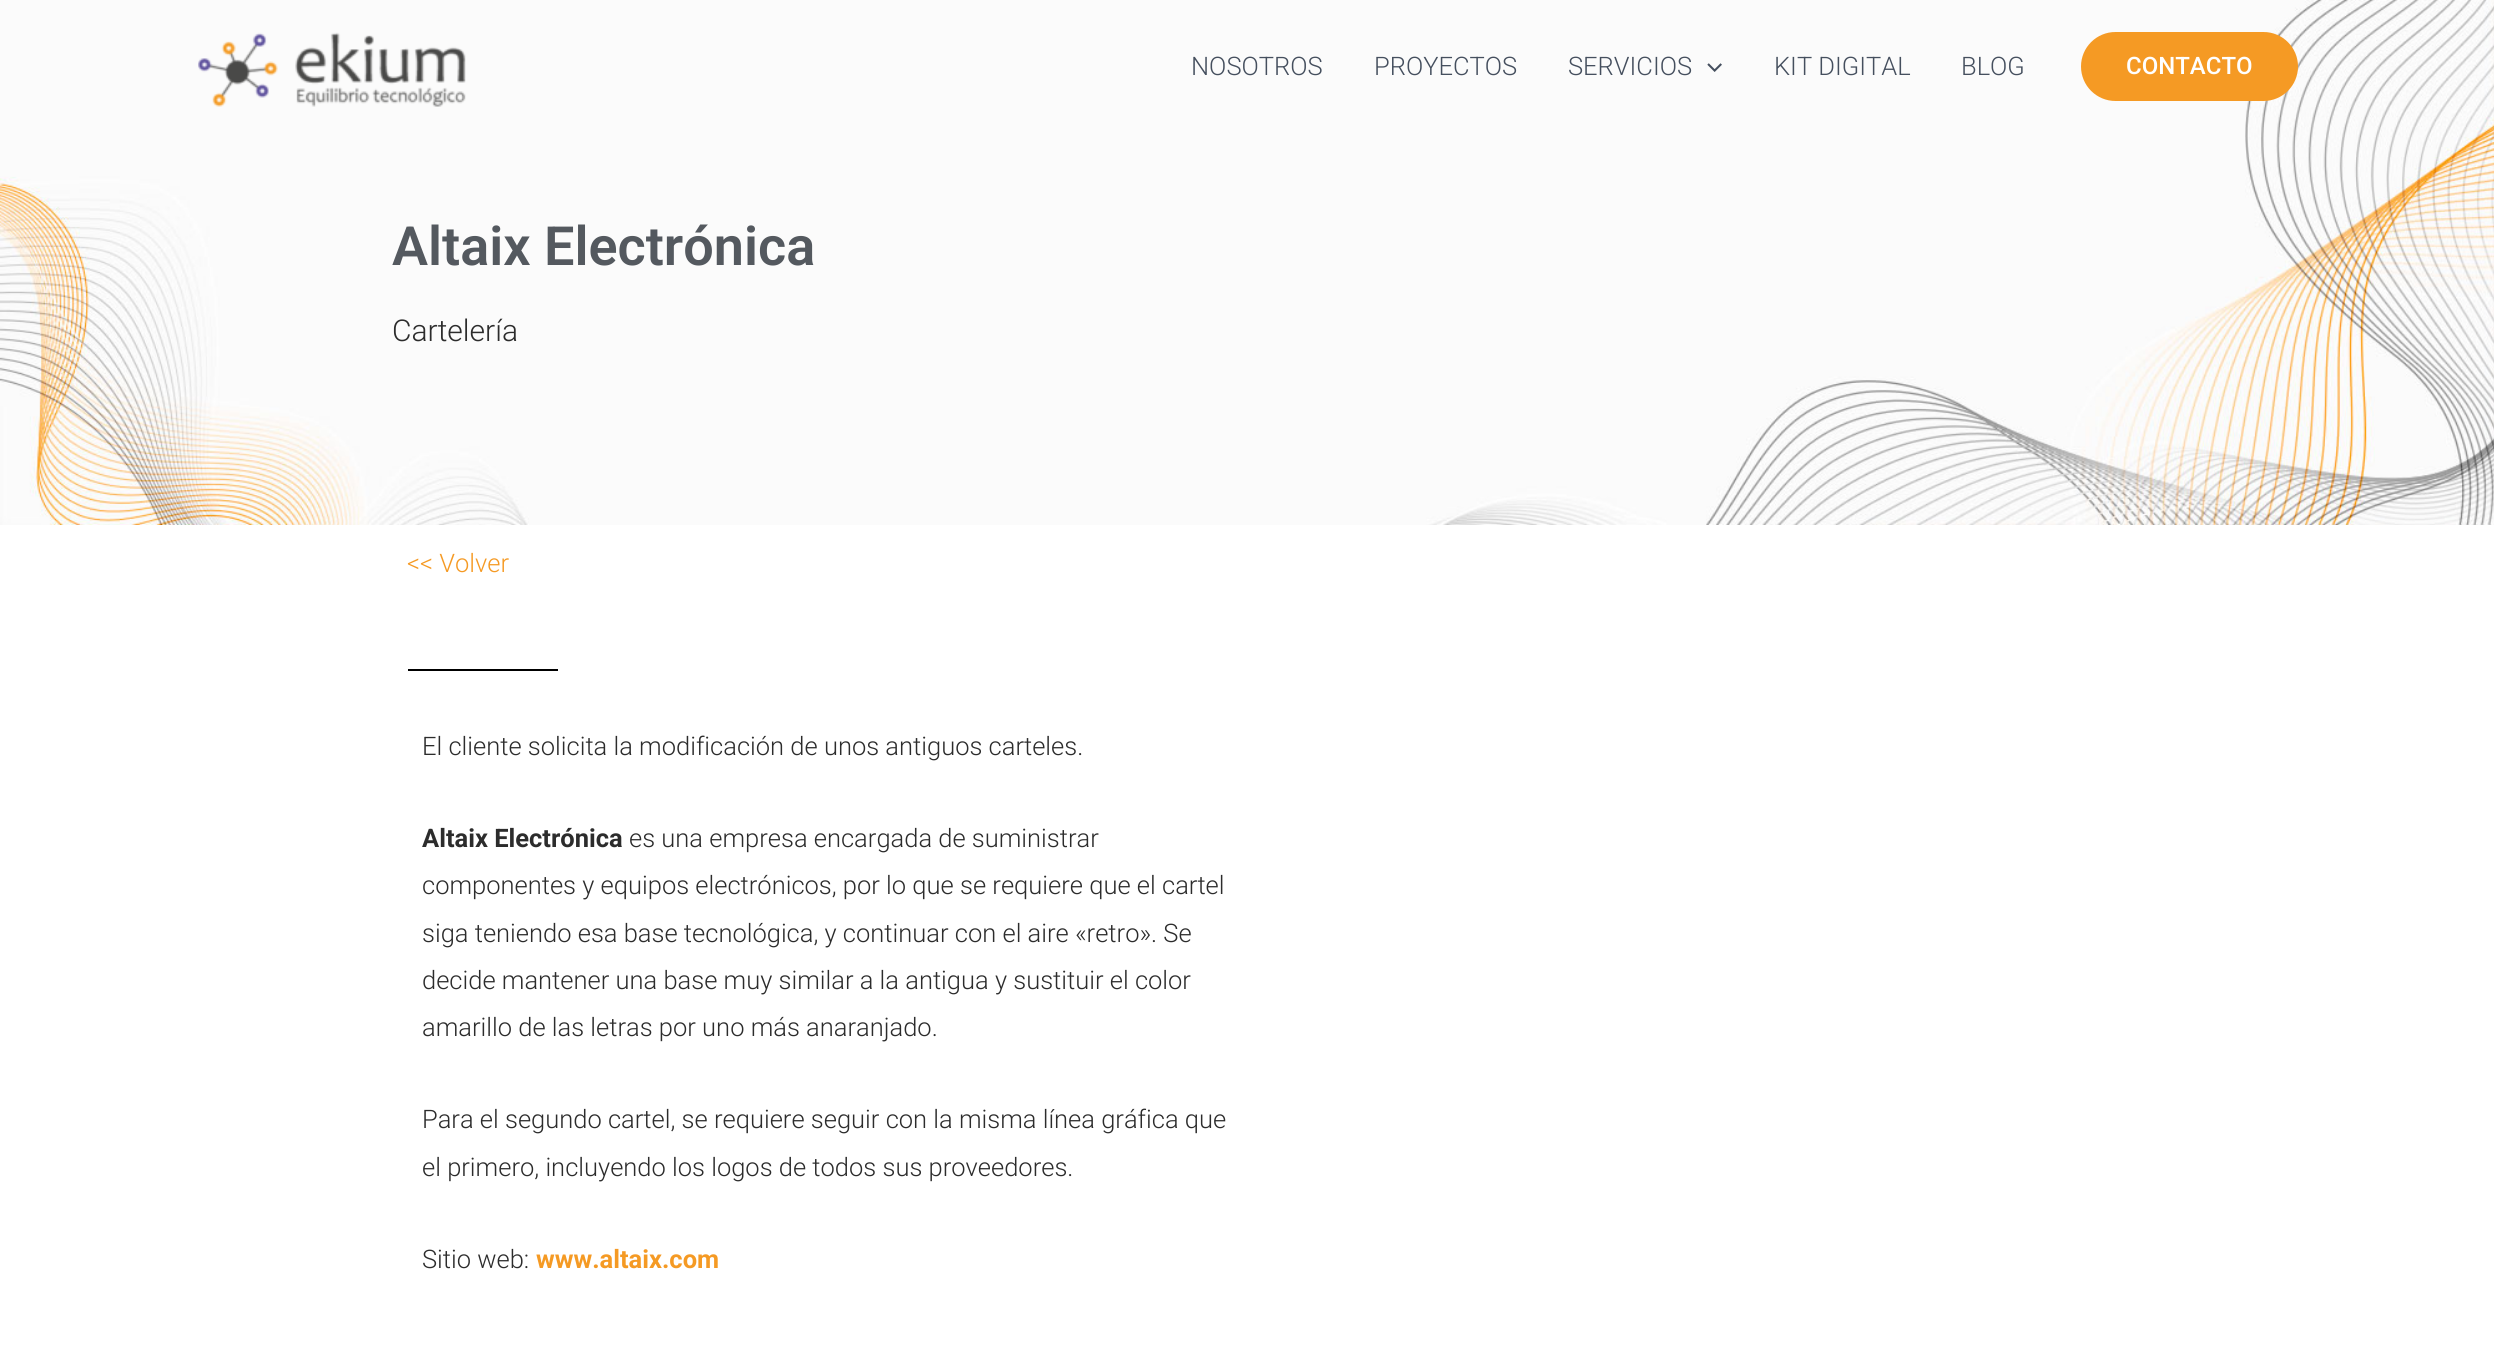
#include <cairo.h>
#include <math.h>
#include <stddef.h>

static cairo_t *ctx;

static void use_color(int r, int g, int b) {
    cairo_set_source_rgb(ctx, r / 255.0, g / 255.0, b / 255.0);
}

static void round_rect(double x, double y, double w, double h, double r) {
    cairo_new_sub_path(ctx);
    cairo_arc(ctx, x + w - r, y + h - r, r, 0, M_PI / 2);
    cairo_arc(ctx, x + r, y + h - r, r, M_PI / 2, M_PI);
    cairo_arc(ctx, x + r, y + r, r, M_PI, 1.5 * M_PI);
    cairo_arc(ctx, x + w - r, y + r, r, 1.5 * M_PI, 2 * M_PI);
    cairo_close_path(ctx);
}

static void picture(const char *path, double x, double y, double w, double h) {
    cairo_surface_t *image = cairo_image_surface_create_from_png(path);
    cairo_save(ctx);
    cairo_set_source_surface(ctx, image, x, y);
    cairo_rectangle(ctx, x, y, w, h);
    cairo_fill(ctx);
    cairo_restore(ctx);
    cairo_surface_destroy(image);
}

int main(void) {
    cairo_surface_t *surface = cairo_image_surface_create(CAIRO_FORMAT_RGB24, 2494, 1364);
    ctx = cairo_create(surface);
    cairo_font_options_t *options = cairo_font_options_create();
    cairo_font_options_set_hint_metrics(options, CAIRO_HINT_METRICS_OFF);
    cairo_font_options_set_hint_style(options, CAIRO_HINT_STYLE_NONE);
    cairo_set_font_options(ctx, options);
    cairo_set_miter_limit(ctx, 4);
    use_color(255, 255, 255);
    cairo_paint(ctx);
    picture("img3.png", 0, 0, 2494, 525);
    picture("img1.png", 198, 32, 268, 75);
    cairo_select_font_face(ctx, "Roboto Light", CAIRO_FONT_SLANT_NORMAL, CAIRO_FONT_WEIGHT_NORMAL);
    cairo_set_font_size(ctx, 25.5);
    use_color(69, 79, 94);
    cairo_move_to(ctx, 1191, 75);
    cairo_show_text(ctx, "NOSOTROS");
    cairo_move_to(ctx, 1374, 75);
    cairo_show_text(ctx, "PROYECTOS");
    cairo_move_to(ctx, 1568, 75);
    cairo_show_text(ctx, "SERVICIOS");
    picture("img2.png", 1707, 63, 15, 9);
    cairo_move_to(ctx, 1774, 75);
    cairo_show_text(ctx, "KIT DIGITAL");
    cairo_move_to(ctx, 1961, 75);
    cairo_show_text(ctx, "BLOG");
    use_color(245, 154, 36);
    round_rect(2081, 32, 217, 69, 34.5);
    cairo_fill(ctx);
    cairo_select_font_face(ctx, "Roboto Medium", CAIRO_FONT_SLANT_NORMAL, CAIRO_FONT_WEIGHT_NORMAL);
    cairo_set_font_size(ctx, 24);
    use_color(255, 255, 255);
    cairo_move_to(ctx, 2126, 74);
    cairo_show_text(ctx, "CONTACTO");
    cairo_select_font_face(ctx, "Roboto SemiBold", CAIRO_FONT_SLANT_NORMAL, CAIRO_FONT_WEIGHT_NORMAL);
    cairo_set_font_size(ctx, 54);
    use_color(84, 89, 95);
    cairo_move_to(ctx, 392, 265);
    cairo_show_text(ctx, "Altaix Electrónica");
    cairo_select_font_face(ctx, "Roboto Light", CAIRO_FONT_SLANT_NORMAL, CAIRO_FONT_WEIGHT_NORMAL);
    cairo_set_font_size(ctx, 30);
    use_color(44, 44, 44);
    cairo_move_to(ctx, 392, 341);
    cairo_show_text(ctx, "Cartelería");
    cairo_set_font_size(ctx, 25.5);
    use_color(245, 154, 36);
    cairo_move_to(ctx, 407, 572);
    cairo_show_text(ctx, "<< Volver");
    use_color(0, 0, 0);
    cairo_rectangle(ctx, 408, 669, 150, 2);
    cairo_fill(ctx);
    use_color(44, 44, 44);
    cairo_move_to(ctx, 422, 755);
    cairo_show_text(ctx, "El cliente solicita la modificación de unos antiguos carteles.");
    cairo_select_font_face(ctx, "Roboto", CAIRO_FONT_SLANT_NORMAL, CAIRO_FONT_WEIGHT_BOLD);
    cairo_move_to(ctx, 422, 847);
    cairo_show_text(ctx, "Altaix Electrónica");
    cairo_select_font_face(ctx, "Roboto Light", CAIRO_FONT_SLANT_NORMAL, CAIRO_FONT_WEIGHT_NORMAL);
    cairo_move_to(ctx, 629, 847);
    cairo_show_text(ctx, "es una empresa encargada de suministrar");
    cairo_move_to(ctx, 422, 894);
    cairo_show_text(ctx, "componentes y equipos electrónicos, por lo que se requiere que el cartel");
    cairo_move_to(ctx, 422, 942);
    cairo_show_text(ctx, "siga teniendo esa base tecnológica, y continuar con el aire «retro». Se");
    cairo_move_to(ctx, 422, 989);
    cairo_show_text(ctx, "decide mantener una base muy similar a la antigua y sustituir el color");
    cairo_move_to(ctx, 422, 1036);
    cairo_show_text(ctx, "amarillo de las letras por uno más anaranjado.");
    cairo_move_to(ctx, 422, 1128);
    cairo_show_text(ctx, "Para el segundo cartel, se requiere seguir con la misma línea gráfica que");
    cairo_move_to(ctx, 422, 1176);
    cairo_show_text(ctx, "el primero, incluyendo los logos de todos sus proveedores.");
    cairo_move_to(ctx, 422, 1268);
    cairo_show_text(ctx, "Sitio web:");
    cairo_select_font_face(ctx, "Roboto", CAIRO_FONT_SLANT_NORMAL, CAIRO_FONT_WEIGHT_BOLD);
    use_color(245, 154, 36);
    cairo_move_to(ctx, 536, 1268);
    cairo_show_text(ctx, "www.altaix.com");
    cairo_surface_write_to_png(surface, "result.png");
    cairo_font_options_destroy(options);
    cairo_destroy(ctx);
    cairo_surface_destroy(surface);
    return 0;
}
